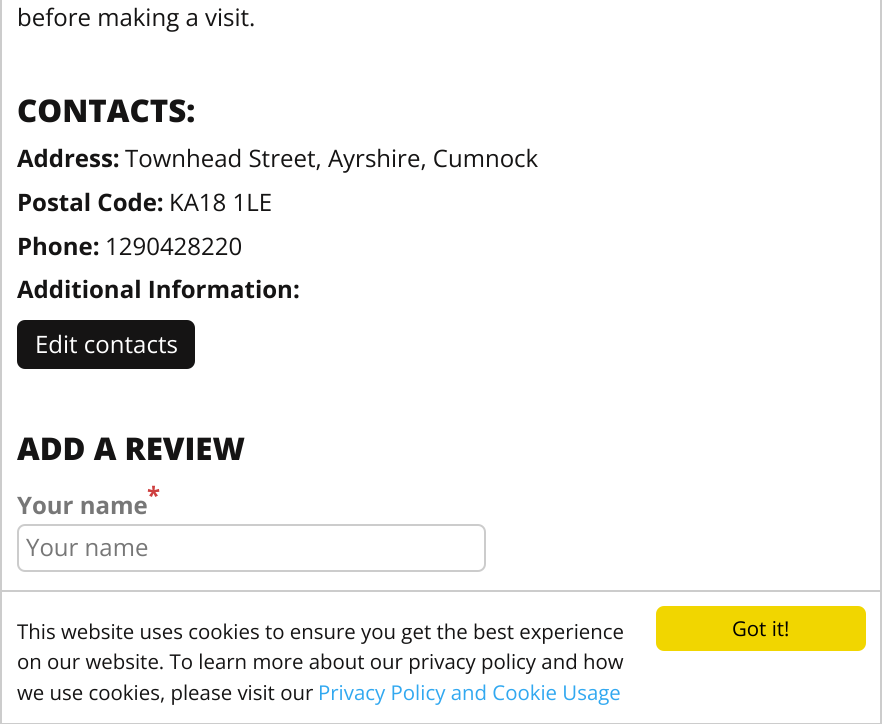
#include <cairo.h>
#include <math.h>
#include <stddef.h>

static cairo_t *ctx;

static void use_color(int r, int g, int b) {
    cairo_set_source_rgb(ctx, r / 255.0, g / 255.0, b / 255.0);
}

static void round_rect(double x, double y, double w, double h, double r) {
    cairo_new_sub_path(ctx);
    cairo_arc(ctx, x + w - r, y + h - r, r, 0, M_PI / 2);
    cairo_arc(ctx, x + r, y + h - r, r, M_PI / 2, M_PI);
    cairo_arc(ctx, x + r, y + r, r, M_PI, 1.5 * M_PI);
    cairo_arc(ctx, x + w - r, y + r, r, 1.5 * M_PI, 2 * M_PI);
    cairo_close_path(ctx);
}

int main(void) {
    cairo_surface_t *surface = cairo_image_surface_create(CAIRO_FORMAT_RGB24, 882, 724);
    ctx = cairo_create(surface);
    cairo_font_options_t *options = cairo_font_options_create();
    cairo_font_options_set_hint_metrics(options, CAIRO_HINT_METRICS_OFF);
    cairo_font_options_set_hint_style(options, CAIRO_HINT_STYLE_NONE);
    cairo_set_font_options(ctx, options);
    cairo_set_miter_limit(ctx, 4);
    use_color(255, 255, 255);
    cairo_paint(ctx);
    cairo_rectangle(ctx, 1, -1, 880, 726);
    use_color(204, 204, 204);
    cairo_stroke(ctx);
    cairo_select_font_face(ctx, "Open Sans", CAIRO_FONT_SLANT_NORMAL, CAIRO_FONT_WEIGHT_NORMAL);
    cairo_set_font_size(ctx, 24);
    use_color(21, 20, 20);
    cairo_move_to(ctx, 17, 26);
    cairo_show_text(ctx, "before making a visit.");
    cairo_select_font_face(ctx, "Open Sans ExtraBold", CAIRO_FONT_SLANT_NORMAL, CAIRO_FONT_WEIGHT_NORMAL);
    cairo_set_font_size(ctx, 31.25);
    cairo_move_to(ctx, 17, 122);
    cairo_show_text(ctx, "CONTACTS:");
    cairo_select_font_face(ctx, "Open Sans", CAIRO_FONT_SLANT_NORMAL, CAIRO_FONT_WEIGHT_BOLD);
    cairo_set_font_size(ctx, 24);
    cairo_move_to(ctx, 17, 167);
    cairo_show_text(ctx, "Address:");
    cairo_select_font_face(ctx, "Open Sans", CAIRO_FONT_SLANT_NORMAL, CAIRO_FONT_WEIGHT_NORMAL);
    cairo_move_to(ctx, 125, 167);
    cairo_show_text(ctx, "Townhead Street, Ayrshire, Cumnock");
    cairo_select_font_face(ctx, "Open Sans", CAIRO_FONT_SLANT_NORMAL, CAIRO_FONT_WEIGHT_BOLD);
    cairo_move_to(ctx, 17, 211);
    cairo_show_text(ctx, "Postal Code:");
    cairo_select_font_face(ctx, "Open Sans", CAIRO_FONT_SLANT_NORMAL, CAIRO_FONT_WEIGHT_NORMAL);
    cairo_move_to(ctx, 169, 211);
    cairo_show_text(ctx, "KA18 1LE");
    cairo_select_font_face(ctx, "Open Sans", CAIRO_FONT_SLANT_NORMAL, CAIRO_FONT_WEIGHT_BOLD);
    cairo_move_to(ctx, 17, 255);
    cairo_show_text(ctx, "Phone:");
    cairo_select_font_face(ctx, "Open Sans", CAIRO_FONT_SLANT_NORMAL, CAIRO_FONT_WEIGHT_NORMAL);
    cairo_move_to(ctx, 105, 255);
    cairo_show_text(ctx, "1290428220");
    cairo_select_font_face(ctx, "Open Sans", CAIRO_FONT_SLANT_NORMAL, CAIRO_FONT_WEIGHT_BOLD);
    cairo_move_to(ctx, 17, 298);
    cairo_show_text(ctx, "Additional Information:");
    round_rect(17, 320, 178, 49, 8);
    cairo_fill(ctx);
    cairo_select_font_face(ctx, "Open Sans", CAIRO_FONT_SLANT_NORMAL, CAIRO_FONT_WEIGHT_NORMAL);
    use_color(255, 255, 255);
    cairo_move_to(ctx, 35, 353);
    cairo_show_text(ctx, "Edit contacts");
    cairo_select_font_face(ctx, "Open Sans ExtraBold", CAIRO_FONT_SLANT_NORMAL, CAIRO_FONT_WEIGHT_NORMAL);
    cairo_set_font_size(ctx, 31.25);
    use_color(21, 20, 20);
    cairo_move_to(ctx, 17, 460);
    cairo_show_text(ctx, "ADD A REVIEW");
    cairo_select_font_face(ctx, "Open Sans", CAIRO_FONT_SLANT_NORMAL, CAIRO_FONT_WEIGHT_BOLD);
    cairo_set_font_size(ctx, 24);
    use_color(206, 63, 63);
    cairo_move_to(ctx, 147, 504);
    cairo_show_text(ctx, "*");
    use_color(119, 119, 119);
    cairo_move_to(ctx, 17, 514);
    cairo_show_text(ctx, "Your name");
    round_rect(18, 525, 467, 46, 7);
    use_color(204, 204, 204);
    cairo_stroke(ctx);
    cairo_select_font_face(ctx, "Open Sans", CAIRO_FONT_SLANT_NORMAL, CAIRO_FONT_WEIGHT_NORMAL);
    use_color(119, 119, 119);
    cairo_move_to(ctx, 26, 556);
    cairo_show_text(ctx, "Your name");
    cairo_rectangle(ctx, 1, 591, 880, 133);
    use_color(204, 204, 204);
    cairo_stroke(ctx);
    cairo_set_font_size(ctx, 20.4);
    use_color(21, 20, 20);
    cairo_move_to(ctx, 17, 639);
    cairo_show_text(ctx, "This website uses cookies to ensure you get the best experience");
    cairo_move_to(ctx, 17, 669);
    cairo_show_text(ctx, "on our website. To learn more about our privacy policy and how");
    cairo_move_to(ctx, 17, 700);
    cairo_show_text(ctx, "we use cookies, please visit our");
    use_color(49, 168, 240);
    cairo_move_to(ctx, 318, 700);
    cairo_show_text(ctx, "Privacy Policy and Cookie Usage");
    use_color(241, 214, 0);
    round_rect(656, 606, 210, 45, 8);
    cairo_fill(ctx);
    use_color(0, 0, 0);
    cairo_move_to(ctx, 732, 636);
    cairo_show_text(ctx, "Got it!");
    cairo_surface_write_to_png(surface, "result.png");
    cairo_font_options_destroy(options);
    cairo_destroy(ctx);
    cairo_surface_destroy(surface);
    return 0;
}
